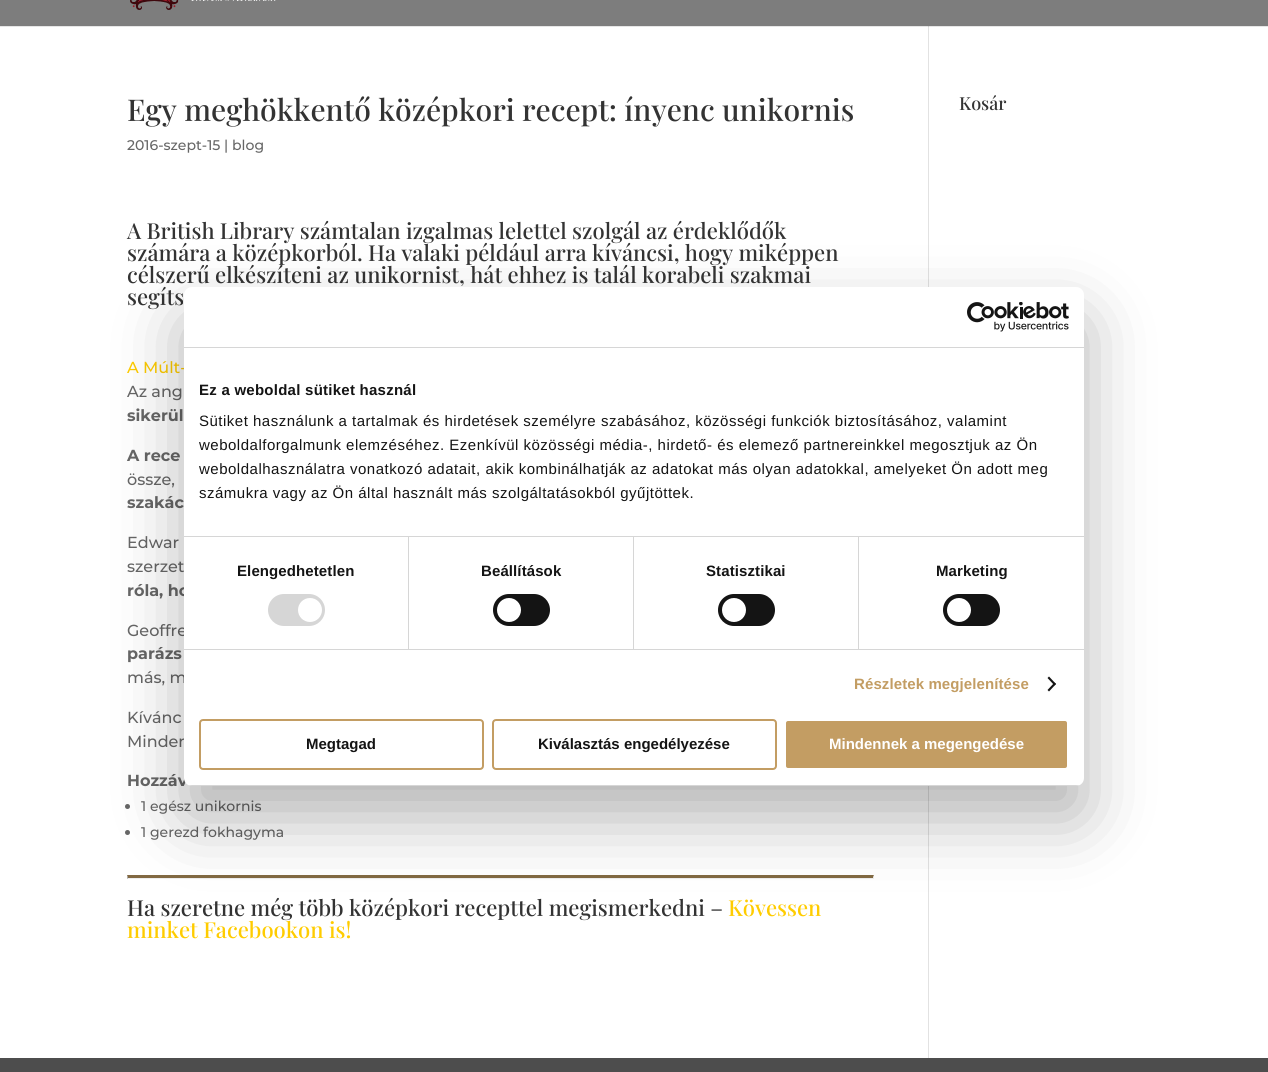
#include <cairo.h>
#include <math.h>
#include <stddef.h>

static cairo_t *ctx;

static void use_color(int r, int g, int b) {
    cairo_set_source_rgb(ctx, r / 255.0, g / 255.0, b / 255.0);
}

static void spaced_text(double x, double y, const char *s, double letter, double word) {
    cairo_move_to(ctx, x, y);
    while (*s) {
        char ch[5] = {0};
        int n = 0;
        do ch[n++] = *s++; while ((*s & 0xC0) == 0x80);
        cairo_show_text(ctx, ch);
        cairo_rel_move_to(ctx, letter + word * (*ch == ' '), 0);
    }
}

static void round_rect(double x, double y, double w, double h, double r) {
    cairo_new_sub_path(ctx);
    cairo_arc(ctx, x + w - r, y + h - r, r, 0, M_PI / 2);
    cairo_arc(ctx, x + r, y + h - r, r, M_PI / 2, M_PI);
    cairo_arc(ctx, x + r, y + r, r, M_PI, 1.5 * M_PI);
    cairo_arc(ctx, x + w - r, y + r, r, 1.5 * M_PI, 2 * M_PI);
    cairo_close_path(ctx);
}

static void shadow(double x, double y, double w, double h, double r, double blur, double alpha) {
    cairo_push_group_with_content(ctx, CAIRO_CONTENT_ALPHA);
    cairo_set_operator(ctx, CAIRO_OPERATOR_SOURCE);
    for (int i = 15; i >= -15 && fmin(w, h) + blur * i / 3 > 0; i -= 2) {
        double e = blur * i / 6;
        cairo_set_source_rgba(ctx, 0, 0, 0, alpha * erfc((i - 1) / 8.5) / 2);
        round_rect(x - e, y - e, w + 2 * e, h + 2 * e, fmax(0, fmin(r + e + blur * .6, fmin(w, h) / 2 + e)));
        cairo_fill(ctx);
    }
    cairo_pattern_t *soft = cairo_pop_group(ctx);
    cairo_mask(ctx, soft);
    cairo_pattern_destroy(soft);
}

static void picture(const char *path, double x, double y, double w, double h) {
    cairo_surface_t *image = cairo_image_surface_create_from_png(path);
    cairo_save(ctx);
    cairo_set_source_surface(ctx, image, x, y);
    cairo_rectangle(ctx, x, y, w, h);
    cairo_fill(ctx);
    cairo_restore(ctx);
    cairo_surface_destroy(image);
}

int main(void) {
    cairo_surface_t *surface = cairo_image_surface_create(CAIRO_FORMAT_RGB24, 1268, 1072);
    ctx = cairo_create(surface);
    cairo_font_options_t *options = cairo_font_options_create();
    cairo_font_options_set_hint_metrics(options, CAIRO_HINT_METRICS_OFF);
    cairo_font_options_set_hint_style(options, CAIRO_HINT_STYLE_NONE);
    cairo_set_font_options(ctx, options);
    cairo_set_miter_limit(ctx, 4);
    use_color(255, 255, 255);
    cairo_paint(ctx);
    use_color(230, 230, 230);
    cairo_rectangle(ctx, 0, 26, 1268, 1);
    cairo_fill(ctx);
    use_color(125, 125, 125);
    cairo_rectangle(ctx, 0, 0, 1268, 26);
    cairo_fill(ctx);
    picture("img1.png", 130, 0, 146, 10);
    use_color(226, 226, 226);
    cairo_rectangle(ctx, 928, 26, 1, 1032);
    cairo_fill(ctx);
    use_color(203, 203, 203);
    cairo_rectangle(ctx, 928, 26, 1, 1);
    cairo_fill(ctx);
    cairo_select_font_face(ctx, "Playfair Display Medium", CAIRO_FONT_SLANT_NORMAL, CAIRO_FONT_WEIGHT_NORMAL);
    cairo_set_font_size(ctx, 30);
    use_color(51, 51, 51);
    cairo_move_to(ctx, 127, 121);
    cairo_show_text(ctx, "Egy meghökkentő középkori recept: ínyenc unikornis");
    cairo_select_font_face(ctx, "Montserrat Medium", CAIRO_FONT_SLANT_NORMAL, CAIRO_FONT_WEIGHT_NORMAL);
    cairo_set_font_size(ctx, 14);
    use_color(102, 102, 102);
    cairo_move_to(ctx, 127, 150);
    cairo_show_text(ctx, "2016-szept-15 | blog");
    cairo_select_font_face(ctx, "Playfair Display Medium", CAIRO_FONT_SLANT_NORMAL, CAIRO_FONT_WEIGHT_NORMAL);
    cairo_set_font_size(ctx, 22);
    use_color(51, 51, 51);
    cairo_move_to(ctx, 127, 239);
    cairo_show_text(ctx, "A British Library számtalan izgalmas lelettel szolgál az érdeklődők");
    cairo_move_to(ctx, 127, 261);
    cairo_show_text(ctx, "számára a középkorból. Ha valaki például arra kíváncsi, hogy miképpen");
    cairo_move_to(ctx, 127, 283);
    cairo_show_text(ctx, "célszerű elkészíteni az unikornist, hát ehhez is talál korabeli szakmai");
    cairo_move_to(ctx, 127, 305);
    cairo_show_text(ctx, "segíts");
    cairo_select_font_face(ctx, "Montserrat Medium", CAIRO_FONT_SLANT_NORMAL, CAIRO_FONT_WEIGHT_NORMAL);
    cairo_set_font_size(ctx, 16);
    use_color(255, 204, 0);
    cairo_move_to(ctx, 127, 373);
    cairo_show_text(ctx, "A Múlt-");
    use_color(102, 102, 102);
    cairo_move_to(ctx, 127, 397);
    cairo_show_text(ctx, "Az ang");
    cairo_select_font_face(ctx, "Montserrat", CAIRO_FONT_SLANT_NORMAL, CAIRO_FONT_WEIGHT_BOLD);
    cairo_move_to(ctx, 127, 421);
    cairo_show_text(ctx, "sikerül");
    cairo_move_to(ctx, 127, 461);
    cairo_show_text(ctx, "A rece");
    cairo_select_font_face(ctx, "Montserrat Medium", CAIRO_FONT_SLANT_NORMAL, CAIRO_FONT_WEIGHT_NORMAL);
    cairo_move_to(ctx, 127, 485);
    cairo_show_text(ctx, "össze,");
    cairo_select_font_face(ctx, "Montserrat", CAIRO_FONT_SLANT_NORMAL, CAIRO_FONT_WEIGHT_BOLD);
    cairo_move_to(ctx, 127, 508);
    cairo_show_text(ctx, "szakác");
    cairo_select_font_face(ctx, "Montserrat Medium", CAIRO_FONT_SLANT_NORMAL, CAIRO_FONT_WEIGHT_NORMAL);
    cairo_move_to(ctx, 127, 548);
    cairo_show_text(ctx, "Edwar");
    cairo_move_to(ctx, 127, 572);
    cairo_show_text(ctx, "szerzet");
    cairo_select_font_face(ctx, "Montserrat", CAIRO_FONT_SLANT_NORMAL, CAIRO_FONT_WEIGHT_BOLD);
    cairo_move_to(ctx, 127, 596);
    cairo_show_text(ctx, "róla, ho");
    cairo_select_font_face(ctx, "Montserrat Medium", CAIRO_FONT_SLANT_NORMAL, CAIRO_FONT_WEIGHT_NORMAL);
    cairo_move_to(ctx, 127, 636);
    cairo_show_text(ctx, "Geoffre");
    cairo_select_font_face(ctx, "Montserrat", CAIRO_FONT_SLANT_NORMAL, CAIRO_FONT_WEIGHT_BOLD);
    cairo_move_to(ctx, 127, 659);
    cairo_show_text(ctx, "parázs");
    cairo_select_font_face(ctx, "Montserrat Medium", CAIRO_FONT_SLANT_NORMAL, CAIRO_FONT_WEIGHT_NORMAL);
    cairo_move_to(ctx, 127, 683);
    cairo_show_text(ctx, "más, m");
    cairo_move_to(ctx, 127, 723);
    cairo_show_text(ctx, "Kívánc");
    cairo_move_to(ctx, 127, 747);
    cairo_show_text(ctx, "Minden");
    cairo_select_font_face(ctx, "Montserrat", CAIRO_FONT_SLANT_NORMAL, CAIRO_FONT_WEIGHT_BOLD);
    cairo_move_to(ctx, 127, 786);
    cairo_show_text(ctx, "Hozzáv");
    cairo_new_path(ctx);
    cairo_arc(ctx, 127.5, 806.5, 2.5, 0, 2 * M_PI);
    cairo_fill(ctx);
    cairo_select_font_face(ctx, "Montserrat Medium", CAIRO_FONT_SLANT_NORMAL, CAIRO_FONT_WEIGHT_NORMAL);
    cairo_set_font_size(ctx, 14);
    cairo_move_to(ctx, 141, 811);
    cairo_show_text(ctx, "1 egész unikornis");
    cairo_new_path(ctx);
    cairo_arc(ctx, 127.5, 832.5, 2.5, 0, 2 * M_PI);
    cairo_fill(ctx);
    cairo_move_to(ctx, 141, 837);
    cairo_show_text(ctx, "1 gerezd fokhagyma");
    use_color(130, 105, 66);
    cairo_new_path(ctx);
    cairo_move_to(ctx, 127, 875);
    cairo_line_to(ctx, 874, 875);
    cairo_line_to(ctx, 873, 878);
    cairo_line_to(ctx, 128, 878);
    cairo_close_path(ctx);
    cairo_fill(ctx);
    use_color(238, 238, 238);
    cairo_new_path(ctx);
    cairo_move_to(ctx, 874, 875);
    cairo_line_to(ctx, 874, 879);
    cairo_line_to(ctx, 873, 878);
    cairo_close_path(ctx);
    cairo_fill(ctx);
    cairo_rectangle(ctx, 127, 878, 747, 1);
    cairo_fill(ctx);
    use_color(159, 159, 159);
    cairo_new_path(ctx);
    cairo_move_to(ctx, 127, 879);
    cairo_line_to(ctx, 127, 875);
    cairo_line_to(ctx, 128, 878);
    cairo_close_path(ctx);
    cairo_fill(ctx);
    cairo_select_font_face(ctx, "Playfair Display Medium", CAIRO_FONT_SLANT_NORMAL, CAIRO_FONT_WEIGHT_NORMAL);
    cairo_set_font_size(ctx, 22);
    use_color(51, 51, 51);
    cairo_move_to(ctx, 127, 916);
    cairo_show_text(ctx, "Ha szeretne még több középkori recepttel megismerkedni –");
    use_color(255, 204, 0);
    cairo_move_to(ctx, 728, 916);
    cairo_show_text(ctx, "Kövessen");
    cairo_move_to(ctx, 127, 938);
    cairo_show_text(ctx, "minket Facebookon is!");
    cairo_set_font_size(ctx, 18);
    use_color(51, 51, 51);
    cairo_move_to(ctx, 959, 110);
    cairo_show_text(ctx, "Kosár");
    use_color(77, 77, 77);
    cairo_rectangle(ctx, 0, 1058, 1268, 14);
    cairo_fill(ctx);
    use_color(0, 0, 0);
    shadow(184, 319, 900, 499, 8, 34, 0.3);
    use_color(255, 255, 255);
    round_rect(184, 287, 900, 499, 8);
    cairo_fill(ctx);
    use_color(214, 214, 214);
    cairo_rectangle(ctx, 184, 347, 900, 1);
    cairo_fill(ctx);
    picture("img2.png", 967, 302, 102, 30);
    cairo_rectangle(ctx, 184, 536, 900, 1);
    cairo_fill(ctx);
    cairo_select_font_face(ctx, "Liberation Sans", CAIRO_FONT_SLANT_NORMAL, CAIRO_FONT_WEIGHT_BOLD);
    cairo_set_font_size(ctx, 15);
    use_color(20, 20, 20);
    spaced_text(199, 395, "Ez a weboldal sütiket használ", 0.25, 0);
    cairo_select_font_face(ctx, "Liberation Sans", CAIRO_FONT_SLANT_NORMAL, CAIRO_FONT_WEIGHT_NORMAL);
    spaced_text(199, 426, "Sütiket használunk a tartalmak és hirdetések személyre szabásához, közösségi funkciók biztosításához, valamint", 0.5, 0);
    spaced_text(199, 450, "weboldalforgalmunk elemzéséhez. Ezenkívül közösségi média-, hirdető- és elemező partnereinkkel megosztjuk az Ön", 0.5, 0);
    spaced_text(199, 474, "weboldalhasználatra vonatkozó adatait, akik kombinálhatják az adatokat más olyan adatokkal, amelyeket Ön adott meg", 0.5, 0);
    spaced_text(199, 498, "számukra vagy az Ön által használt más szolgáltatásokból gyűjtöttek.", 0.5, 0);
    use_color(214, 214, 214);
    cairo_rectangle(ctx, 184, 649, 900, 1);
    cairo_fill(ctx);
    cairo_rectangle(ctx, 408, 537, 1, 112);
    cairo_fill(ctx);
    cairo_select_font_face(ctx, "Liberation Sans", CAIRO_FONT_SLANT_NORMAL, CAIRO_FONT_WEIGHT_BOLD);
    use_color(20, 20, 20);
    spaced_text(237, 576, "Elengedhetetlen", 0.1, 0);
    use_color(214, 214, 214);
    round_rect(268, 594, 57, 32, 16);
    cairo_fill(ctx);
    use_color(255, 255, 255);
    cairo_arc(ctx, 310, 610, 12, 0, 2 * M_PI);
    cairo_fill(ctx);
    use_color(214, 214, 214);
    cairo_rectangle(ctx, 633, 537, 1, 112);
    cairo_fill(ctx);
    use_color(20, 20, 20);
    spaced_text(481, 576, "Beállítások", 0.1, 0);
    round_rect(493, 594, 57, 32, 16);
    cairo_fill(ctx);
    use_color(255, 255, 255);
    cairo_arc(ctx, 509, 610, 12, 0, 2 * M_PI);
    cairo_fill(ctx);
    use_color(214, 214, 214);
    cairo_rectangle(ctx, 858, 537, 1, 112);
    cairo_fill(ctx);
    use_color(20, 20, 20);
    spaced_text(706, 576, "Statisztikai", 0.1, 0);
    round_rect(718, 594, 57, 32, 16);
    cairo_fill(ctx);
    use_color(255, 255, 255);
    cairo_arc(ctx, 734, 610, 12, 0, 2 * M_PI);
    cairo_fill(ctx);
    use_color(20, 20, 20);
    spaced_text(936, 576, "Marketing", 0.1, 0);
    round_rect(943, 594, 57, 32, 16);
    cairo_fill(ctx);
    use_color(255, 255, 255);
    cairo_arc(ctx, 959, 610, 12, 0, 2 * M_PI);
    cairo_fill(ctx);
    use_color(195, 157, 99);
    spaced_text(854, 689, "Részletek megjelenítése", 0.1, 0);
    use_color(20, 20, 20);
    cairo_new_path(ctx);
    cairo_move_to(ctx, 1049, 676.5);
    cairo_line_to(ctx, 1056, 684);
    cairo_line_to(ctx, 1054.5, 685.5);
    cairo_line_to(ctx, 1047.5, 678);
    cairo_close_path(ctx);
    cairo_fill(ctx);
    cairo_new_path(ctx);
    cairo_move_to(ctx, 1054.5, 682.5);
    cairo_line_to(ctx, 1056, 684);
    cairo_line_to(ctx, 1049, 691.5);
    cairo_line_to(ctx, 1047.5, 690);
    cairo_close_path(ctx);
    cairo_fill(ctx);
    cairo_save(ctx);
    round_rect(184, 287, 900, 499, 8);
    cairo_clip(ctx);
    use_color(214, 214, 214);
    cairo_rectangle(ctx, 184, 785, 900, 1);
    cairo_fill(ctx);
    cairo_restore(ctx);
    round_rect(200, 720, 283, 49, 3);
    use_color(195, 157, 99);
    cairo_stroke(ctx);
    use_color(20, 20, 20);
    cairo_move_to(ctx, 306, 749);
    cairo_show_text(ctx, "Megtagad");
    round_rect(493, 720, 283, 49, 3);
    use_color(195, 157, 99);
    cairo_stroke(ctx);
    use_color(20, 20, 20);
    cairo_move_to(ctx, 538, 749);
    cairo_show_text(ctx, "Kiválasztás engedélyezése");
    use_color(195, 157, 99);
    round_rect(785, 720, 283, 49, 3);
    cairo_fill_preserve(ctx);
    use_color(255, 255, 255);
    cairo_stroke(ctx);
    cairo_move_to(ctx, 829, 749);
    cairo_show_text(ctx, "Mindennek a megengedése");
    cairo_surface_write_to_png(surface, "result.png");
    cairo_font_options_destroy(options);
    cairo_destroy(ctx);
    cairo_surface_destroy(surface);
    return 0;
}
